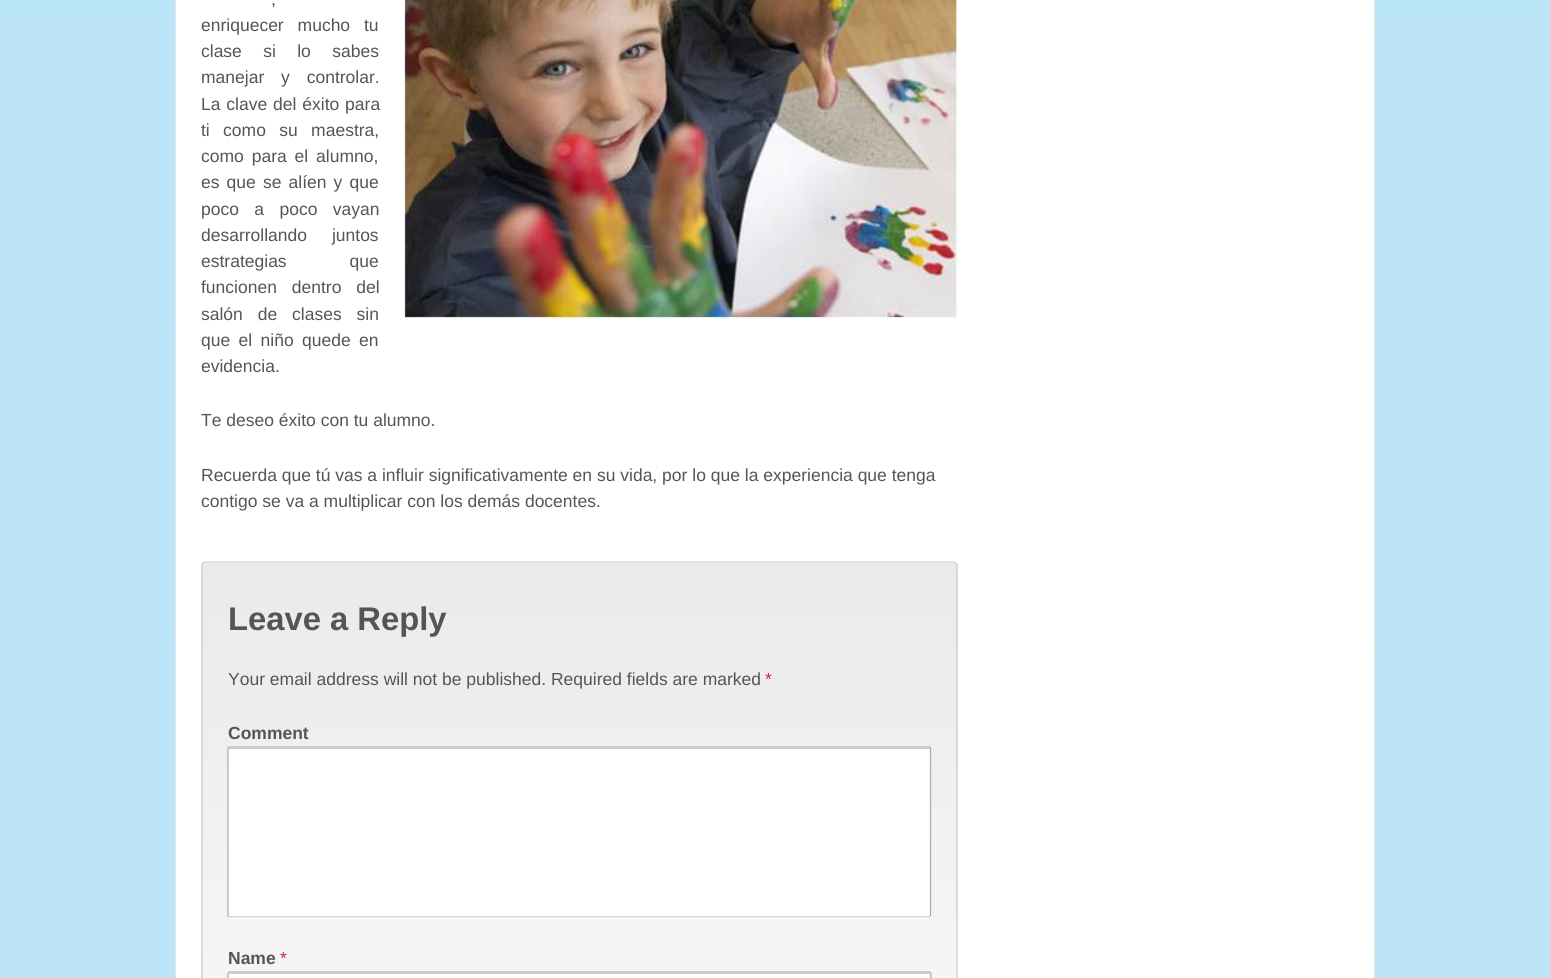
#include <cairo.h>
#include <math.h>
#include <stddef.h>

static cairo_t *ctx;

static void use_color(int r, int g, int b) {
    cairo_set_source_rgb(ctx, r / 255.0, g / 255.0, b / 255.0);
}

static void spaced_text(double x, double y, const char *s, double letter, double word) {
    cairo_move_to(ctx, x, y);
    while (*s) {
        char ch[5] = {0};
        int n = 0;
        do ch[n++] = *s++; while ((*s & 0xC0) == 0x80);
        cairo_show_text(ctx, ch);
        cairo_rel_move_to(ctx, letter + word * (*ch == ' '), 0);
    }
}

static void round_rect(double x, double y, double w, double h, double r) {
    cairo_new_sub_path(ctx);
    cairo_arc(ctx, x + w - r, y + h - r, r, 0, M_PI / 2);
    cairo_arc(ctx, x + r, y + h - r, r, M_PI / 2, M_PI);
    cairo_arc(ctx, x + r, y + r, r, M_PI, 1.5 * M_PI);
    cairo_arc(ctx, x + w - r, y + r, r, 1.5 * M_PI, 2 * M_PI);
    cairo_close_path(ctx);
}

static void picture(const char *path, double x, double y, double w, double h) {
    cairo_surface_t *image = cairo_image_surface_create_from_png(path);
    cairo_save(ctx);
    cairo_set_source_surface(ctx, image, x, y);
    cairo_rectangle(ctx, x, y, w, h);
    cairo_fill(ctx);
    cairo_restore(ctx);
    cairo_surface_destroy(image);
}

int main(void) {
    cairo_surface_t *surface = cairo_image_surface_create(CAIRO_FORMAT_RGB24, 1550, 978);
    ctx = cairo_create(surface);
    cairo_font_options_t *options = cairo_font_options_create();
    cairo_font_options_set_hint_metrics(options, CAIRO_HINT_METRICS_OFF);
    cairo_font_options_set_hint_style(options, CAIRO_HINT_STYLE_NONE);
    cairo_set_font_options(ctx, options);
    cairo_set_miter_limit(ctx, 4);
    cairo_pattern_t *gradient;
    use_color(255, 255, 255);
    cairo_paint(ctx);
    picture("img1.png", 0, 0, 1550, 978);
    use_color(255, 255, 255);
    cairo_rectangle(ctx, 175.5, -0.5, 1199, 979);
    cairo_fill_preserve(ctx);
    use_color(229, 229, 229);
    cairo_set_line_width(ctx, 1);
    cairo_stroke(ctx);
    cairo_select_font_face(ctx, "Liberation Sans", CAIRO_FONT_SLANT_NORMAL, CAIRO_FONT_WEIGHT_NORMAL);
    cairo_set_font_size(ctx, 17.5);
    use_color(85, 85, 85);
    spaced_text(271, 5, ",", 0, 13);
    spaced_text(201, 31, "enriquecer mucho tu", 0, 9);
    spaced_text(201, 57, "clase si lo sabes", 0, 16.5);
    spaced_text(201, 83, "manejar y controlar.", 0, 12);
    spaced_text(201, 110, "La clave del éxito para", 0, 1);
    spaced_text(201, 136, "ti como su maestra,", 0, 8.5);
    spaced_text(201, 162, "como para el alumno,", 0, 3);
    spaced_text(201, 188, "es que se alíen y que", 0, 2.25);
    spaced_text(201, 215, "poco a poco vayan", 0, 10.5);
    spaced_text(201, 241, "desarrollando juntos", 0, 20);
    spaced_text(201, 267, "estrategias que", 0, 58);
    spaced_text(201, 293, "funcionen dentro del", 0, 10);
    spaced_text(201, 320, "salón de clases sin", 0, 10);
    spaced_text(201, 346, "que el niño quede en", 0, 3.5);
    cairo_move_to(ctx, 201, 372);
    cairo_show_text(ctx, "evidencia.");
    picture("img2.png", 403, 0, 555, 319);
    cairo_move_to(ctx, 201, 426);
    cairo_show_text(ctx, "Te deseo éxito con tu alumno.");
    cairo_move_to(ctx, 201, 481);
    cairo_show_text(ctx, "Recuerda que tú vas a influir significativamente en su vida, por lo que la experiencia que tenga");
    cairo_move_to(ctx, 201, 507);
    cairo_show_text(ctx, "contigo se va a multiplicar con los demás docentes.");
    cairo_save(ctx);
    round_rect(201, 561, 757, 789, 5);
    cairo_clip(ctx);
    gradient = cairo_pattern_create_linear(579, 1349, 579, 563);
    cairo_pattern_add_color_stop_rgba(gradient, 0, 1, 1, 1, 1);
    cairo_pattern_add_color_stop_rgba(gradient, 1, 0.918, 0.918, 0.918, 1);
    cairo_set_source(ctx, gradient);
    cairo_pattern_destroy(gradient);
    cairo_rectangle(ctx, 201, 563, 757, 415);
    cairo_fill(ctx);
    cairo_restore(ctx);
    cairo_new_path(ctx);
    cairo_move_to(ctx, 203, 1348);
    cairo_curve_to(ctx, 202.5, 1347.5, 202, 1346, 202, 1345);
    cairo_line_to(ctx, 202, 566);
    cairo_curve_to(ctx, 202, 565, 202.5, 564, 203, 563);
    cairo_curve_to(ctx, 204, 562.5, 205, 562, 206, 562);
    cairo_line_to(ctx, 952.5, 562);
    cairo_curve_to(ctx, 953.5, 562, 955, 562.5, 955.5, 563);
    cairo_curve_to(ctx, 956.5, 564, 957, 565, 957, 566);
    cairo_line_to(ctx, 957, 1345);
    cairo_curve_to(ctx, 957, 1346, 956.5, 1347.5, 955.5, 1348);
    use_color(204, 204, 204);
    cairo_set_line_width(ctx, 1.2);
    cairo_stroke(ctx);
    cairo_select_font_face(ctx, "Liberation Sans", CAIRO_FONT_SLANT_NORMAL, CAIRO_FONT_WEIGHT_BOLD);
    cairo_set_font_size(ctx, 32.75);
    use_color(85, 85, 85);
    cairo_move_to(ctx, 228, 630);
    cairo_show_text(ctx, "Leave a Reply");
    cairo_select_font_face(ctx, "Liberation Sans", CAIRO_FONT_SLANT_NORMAL, CAIRO_FONT_WEIGHT_NORMAL);
    cairo_set_font_size(ctx, 17.5);
    cairo_move_to(ctx, 228, 685);
    cairo_show_text(ctx, "Your email address will not be published. Required fields are marked");
    use_color(213, 36, 63);
    cairo_move_to(ctx, 765, 685);
    cairo_show_text(ctx, "*");
    cairo_select_font_face(ctx, "Liberation Sans", CAIRO_FONT_SLANT_NORMAL, CAIRO_FONT_WEIGHT_BOLD);
    use_color(85, 85, 85);
    cairo_move_to(ctx, 228, 739);
    cairo_show_text(ctx, "Comment");
    use_color(255, 255, 255);
    cairo_new_path(ctx);
    cairo_move_to(ctx, 228, 916);
    cairo_curve_to(ctx, 228, 918, 229, 919, 230, 919);
    cairo_line_to(ctx, 928, 919);
    cairo_curve_to(ctx, 930, 919, 931, 918, 931, 916);
    cairo_curve_to(ctx, 931, 917, 930, 918, 929, 918);
    cairo_line_to(ctx, 230, 918);
    cairo_curve_to(ctx, 229, 918, 228, 917, 228, 916);
    cairo_close_path(ctx);
    cairo_fill(ctx);
    round_rect(228, 746, 703, 172, 2.5);
    cairo_fill(ctx);
    use_color(204, 204, 204);
    cairo_new_path(ctx);
    cairo_move_to(ctx, 230, 749);
    cairo_line_to(ctx, 929, 749);
    cairo_line_to(ctx, 930, 750);
    cairo_curve_to(ctx, 930, 749, 930, 748, 929, 748);
    cairo_line_to(ctx, 230, 748);
    cairo_curve_to(ctx, 229, 748, 229, 749, 229, 750);
    cairo_curve_to(ctx, 229, 749, 229, 749, 230, 749);
    cairo_close_path(ctx);
    cairo_fill(ctx);
    cairo_new_path(ctx);
    cairo_move_to(ctx, 930, 916.5);
    cairo_line_to(ctx, 929, 917);
    cairo_line_to(ctx, 230, 917);
    cairo_line_to(ctx, 228.5, 916.5);
    cairo_stroke(ctx);
    cairo_new_path(ctx);
    cairo_move_to(ctx, 228.5, 916.5);
    cairo_line_to(ctx, 228, 915);
    cairo_line_to(ctx, 228, 749);
    cairo_curve_to(ctx, 228, 747.5, 229, 747, 230, 747);
    cairo_line_to(ctx, 929, 747);
    cairo_curve_to(ctx, 930, 747, 930.5, 747.5, 930.5, 749);
    cairo_line_to(ctx, 930.5, 915);
    cairo_line_to(ctx, 930, 916.5);
    use_color(170, 170, 170);
    cairo_stroke(ctx);
    use_color(85, 85, 85);
    cairo_move_to(ctx, 228, 964);
    cairo_show_text(ctx, "Name");
    cairo_select_font_face(ctx, "Liberation Sans", CAIRO_FONT_SLANT_NORMAL, CAIRO_FONT_WEIGHT_NORMAL);
    use_color(213, 36, 63);
    cairo_move_to(ctx, 280, 964);
    cairo_show_text(ctx, "*");
    use_color(255, 255, 255);
    round_rect(228, 971, 703, 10, 2.5);
    cairo_fill(ctx);
    use_color(204, 204, 204);
    cairo_new_path(ctx);
    cairo_move_to(ctx, 230, 973);
    cairo_line_to(ctx, 229, 974);
    cairo_line_to(ctx, 930, 974);
    cairo_line_to(ctx, 929, 973);
    cairo_close_path(ctx);
    cairo_fill(ctx);
    cairo_new_path(ctx);
    cairo_move_to(ctx, 228.5, 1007.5);
    cairo_curve_to(ctx, 227, 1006, 228, 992.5, 228, 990);
    cairo_line_to(ctx, 228, 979);
    cairo_curve_to(ctx, 228, 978.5, 227, 972, 230, 972);
    cairo_line_to(ctx, 929, 972);
    cairo_curve_to(ctx, 932, 972, 930.5, 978.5, 930.5, 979);
    cairo_line_to(ctx, 930.5, 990);
    cairo_curve_to(ctx, 930.5, 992.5, 931.5, 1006, 930, 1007.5);
    use_color(170, 170, 170);
    cairo_stroke(ctx);
    cairo_surface_write_to_png(surface, "result.png");
    cairo_font_options_destroy(options);
    cairo_destroy(ctx);
    cairo_surface_destroy(surface);
    return 0;
}
